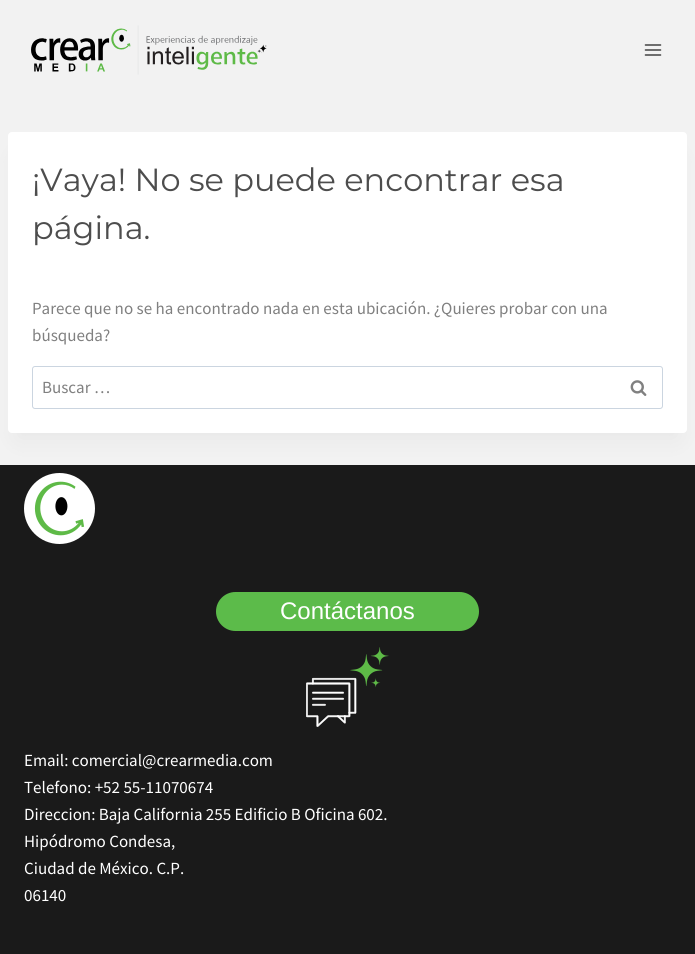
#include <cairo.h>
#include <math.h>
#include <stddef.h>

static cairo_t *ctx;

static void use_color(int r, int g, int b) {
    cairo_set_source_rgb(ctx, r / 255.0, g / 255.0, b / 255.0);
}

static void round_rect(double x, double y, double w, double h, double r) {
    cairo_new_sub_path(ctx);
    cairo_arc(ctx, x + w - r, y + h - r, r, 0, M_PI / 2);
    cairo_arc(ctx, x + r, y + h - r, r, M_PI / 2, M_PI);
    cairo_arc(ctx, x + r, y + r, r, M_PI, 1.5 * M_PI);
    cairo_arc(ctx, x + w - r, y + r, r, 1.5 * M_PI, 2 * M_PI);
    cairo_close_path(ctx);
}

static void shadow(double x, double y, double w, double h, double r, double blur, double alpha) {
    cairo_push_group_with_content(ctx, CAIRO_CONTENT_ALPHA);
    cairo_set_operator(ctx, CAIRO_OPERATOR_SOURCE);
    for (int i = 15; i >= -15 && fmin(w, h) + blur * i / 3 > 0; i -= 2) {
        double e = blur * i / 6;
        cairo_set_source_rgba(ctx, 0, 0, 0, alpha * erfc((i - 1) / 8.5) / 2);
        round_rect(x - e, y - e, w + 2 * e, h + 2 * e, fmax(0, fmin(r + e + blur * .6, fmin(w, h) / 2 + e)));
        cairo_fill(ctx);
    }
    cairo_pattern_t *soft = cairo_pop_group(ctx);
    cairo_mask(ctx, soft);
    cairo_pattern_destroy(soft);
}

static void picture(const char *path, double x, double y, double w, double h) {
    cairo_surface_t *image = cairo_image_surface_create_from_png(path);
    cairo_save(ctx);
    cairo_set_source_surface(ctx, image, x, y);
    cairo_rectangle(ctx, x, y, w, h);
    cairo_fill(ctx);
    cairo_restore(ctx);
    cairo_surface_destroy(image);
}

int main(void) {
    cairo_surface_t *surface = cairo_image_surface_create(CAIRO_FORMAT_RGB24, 695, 954);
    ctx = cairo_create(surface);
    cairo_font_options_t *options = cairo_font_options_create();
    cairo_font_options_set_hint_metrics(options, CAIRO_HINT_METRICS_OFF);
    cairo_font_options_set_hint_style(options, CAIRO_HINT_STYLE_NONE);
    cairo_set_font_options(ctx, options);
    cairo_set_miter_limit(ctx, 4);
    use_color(242, 242, 242);
    cairo_paint(ctx);
    picture("img1.png", 31, 25, 236, 50);
    picture("img2.png", 644, 44, 18, 12);
    use_color(26, 26, 26);
    cairo_rectangle(ctx, 0, 465, 695, 489);
    cairo_fill(ctx);
    use_color(0, 0, 0);
    shadow(18, 157, 659, 281, 0, 12.5, 0.05);
    use_color(255, 255, 255);
    round_rect(8, 132, 679, 301, 4);
    cairo_fill(ctx);
    cairo_select_font_face(ctx, "Montserrat Thin", CAIRO_FONT_SLANT_NORMAL, CAIRO_FONT_WEIGHT_NORMAL);
    cairo_set_font_size(ctx, 32);
    use_color(77, 77, 77);
    cairo_move_to(ctx, 32, 191);
    cairo_show_text(ctx, "¡Vaya! No se puede encontrar esa");
    cairo_move_to(ctx, 32, 239);
    cairo_show_text(ctx, "página.");
    cairo_select_font_face(ctx, "Source Sans Pro", CAIRO_FONT_SLANT_NORMAL, CAIRO_FONT_WEIGHT_NORMAL);
    cairo_set_font_size(ctx, 17);
    use_color(128, 128, 128);
    cairo_move_to(ctx, 32, 314);
    cairo_show_text(ctx, "Parece que no se ha encontrado nada en esta ubicación. ¿Quieres probar con una");
    cairo_move_to(ctx, 32, 341);
    cairo_show_text(ctx, "búsqueda?");
    round_rect(32.5, 366.5, 630, 42, 2.5);
    use_color(203, 213, 224);
    cairo_set_line_width(ctx, 1);
    cairo_stroke(ctx);
    use_color(128, 128, 128);
    cairo_move_to(ctx, 42, 393);
    cairo_show_text(ctx, "Buscar …");
    picture("img3.png", 630, 380, 17, 16);
    picture("img4.png", 24, 473, 71, 71);
    use_color(92, 187, 74);
    round_rect(216, 592, 263, 39, 19.5);
    cairo_fill(ctx);
    cairo_select_font_face(ctx, "Liberation Sans", CAIRO_FONT_SLANT_NORMAL, CAIRO_FONT_WEIGHT_NORMAL);
    cairo_set_font_size(ctx, 24);
    use_color(255, 255, 255);
    cairo_move_to(ctx, 280, 619);
    cairo_show_text(ctx, "Contáctanos");
    picture("img5.png", 306, 647, 83, 80);
    cairo_select_font_face(ctx, "Source Sans Pro", CAIRO_FONT_SLANT_NORMAL, CAIRO_FONT_WEIGHT_NORMAL);
    cairo_set_font_size(ctx, 17);
    cairo_move_to(ctx, 24, 766);
    cairo_show_text(ctx, "Email: comercial@crearmedia.com");
    cairo_move_to(ctx, 24, 793);
    cairo_show_text(ctx, "Telefono: +52 55-11070674");
    cairo_move_to(ctx, 24, 820);
    cairo_show_text(ctx, "Direccion: Baja California 255 Edificio B Oficina 602.");
    cairo_move_to(ctx, 24, 847);
    cairo_show_text(ctx, "Hipódromo Condesa,");
    cairo_move_to(ctx, 24, 874);
    cairo_show_text(ctx, "Ciudad de México. C.P.");
    cairo_move_to(ctx, 24, 901);
    cairo_show_text(ctx, "06140");
    cairo_surface_write_to_png(surface, "result.png");
    cairo_font_options_destroy(options);
    cairo_destroy(ctx);
    cairo_surface_destroy(surface);
    return 0;
}
